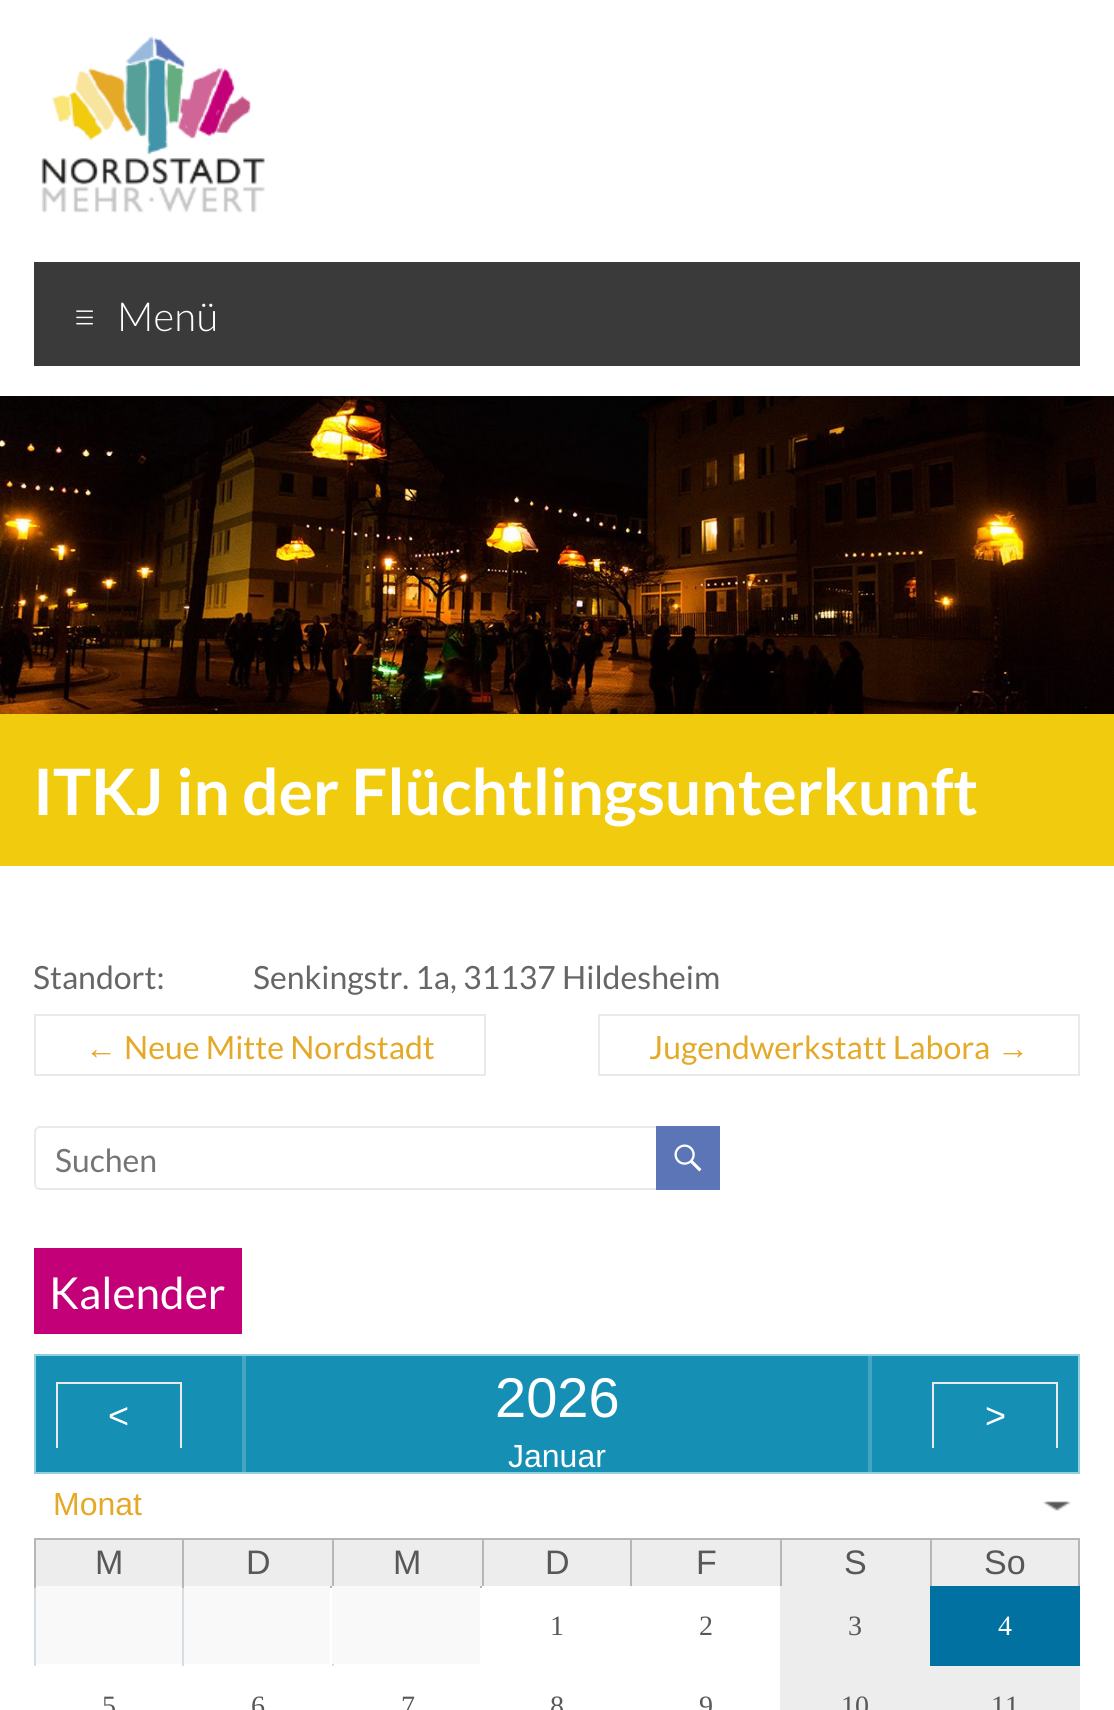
#include <cairo.h>
#include <math.h>
#include <stddef.h>

static cairo_t *ctx;

static void use_color(int r, int g, int b) {
    cairo_set_source_rgb(ctx, r / 255.0, g / 255.0, b / 255.0);
}

static void round_rect(double x, double y, double w, double h, double r) {
    cairo_new_sub_path(ctx);
    cairo_arc(ctx, x + w - r, y + h - r, r, 0, M_PI / 2);
    cairo_arc(ctx, x + r, y + h - r, r, M_PI / 2, M_PI);
    cairo_arc(ctx, x + r, y + r, r, M_PI, 1.5 * M_PI);
    cairo_arc(ctx, x + w - r, y + r, r, 1.5 * M_PI, 2 * M_PI);
    cairo_close_path(ctx);
}

static void picture(const char *path, double x, double y, double w, double h) {
    cairo_surface_t *image = cairo_image_surface_create_from_png(path);
    cairo_save(ctx);
    cairo_set_source_surface(ctx, image, x, y);
    cairo_rectangle(ctx, x, y, w, h);
    cairo_fill(ctx);
    cairo_restore(ctx);
    cairo_surface_destroy(image);
}

int main(void) {
    cairo_surface_t *surface = cairo_image_surface_create(CAIRO_FORMAT_RGB24, 1114, 1710);
    ctx = cairo_create(surface);
    cairo_font_options_t *options = cairo_font_options_create();
    cairo_font_options_set_hint_metrics(options, CAIRO_HINT_METRICS_OFF);
    cairo_font_options_set_hint_style(options, CAIRO_HINT_STYLE_NONE);
    cairo_set_font_options(ctx, options);
    cairo_set_miter_limit(ctx, 4);
    use_color(255, 255, 255);
    cairo_paint(ctx);
    picture("img1.png", 41, 36, 224, 177);
    use_color(58, 58, 58);
    cairo_rectangle(ctx, 34, 262, 1046, 104);
    cairo_fill(ctx);
    cairo_select_font_face(ctx, "Lato Light", CAIRO_FONT_SLANT_NORMAL, CAIRO_FONT_WEIGHT_NORMAL);
    cairo_set_font_size(ctx, 40);
    use_color(255, 255, 255);
    cairo_move_to(ctx, 73, 331);
    cairo_show_text(ctx, "≡");
    cairo_move_to(ctx, 117, 331);
    cairo_show_text(ctx, "Menü");
    picture("img2.png", 0, 396, 1114, 318);
    use_color(241, 203, 13);
    cairo_rectangle(ctx, 0, 714, 1114, 152);
    cairo_fill(ctx);
    cairo_select_font_face(ctx, "Lato", CAIRO_FONT_SLANT_NORMAL, CAIRO_FONT_WEIGHT_BOLD);
    cairo_set_font_size(ctx, 64);
    use_color(255, 255, 255);
    cairo_move_to(ctx, 33, 815);
    cairo_show_text(ctx, "ITKJ in der Flüchtlingsunterkunft");
    cairo_select_font_face(ctx, "Lato", CAIRO_FONT_SLANT_NORMAL, CAIRO_FONT_WEIGHT_NORMAL);
    cairo_set_font_size(ctx, 32);
    use_color(102, 102, 102);
    cairo_move_to(ctx, 33, 989);
    cairo_show_text(ctx, "Standort:");
    cairo_move_to(ctx, 253, 989);
    cairo_show_text(ctx, "Senkingstr. 1a, 31137 Hildesheim");
    cairo_select_font_face(ctx, "Liberation Sans", CAIRO_FONT_SLANT_NORMAL, CAIRO_FONT_WEIGHT_NORMAL);
    use_color(229, 169, 40);
    cairo_move_to(ctx, 85, 1059);
    cairo_show_text(ctx, "←");
    use_color(234, 234, 234);
    cairo_rectangle(ctx, 34, 1074, 84, 2);
    cairo_fill(ctx);
    cairo_rectangle(ctx, 34, 1014, 452, 2);
    cairo_fill(ctx);
    cairo_rectangle(ctx, 34, 1014, 2, 62);
    cairo_fill(ctx);
    cairo_rectangle(ctx, 484, 1014, 2, 62);
    cairo_fill(ctx);
    cairo_rectangle(ctx, 118, 1074, 368, 2);
    cairo_fill(ctx);
    cairo_select_font_face(ctx, "Lato", CAIRO_FONT_SLANT_NORMAL, CAIRO_FONT_WEIGHT_NORMAL);
    use_color(229, 169, 40);
    cairo_move_to(ctx, 124, 1059);
    cairo_show_text(ctx, "Neue Mitte Nordstadt");
    cairo_move_to(ctx, 649, 1059);
    cairo_show_text(ctx, "Jugendwerkstatt Labora");
    use_color(234, 234, 234);
    cairo_rectangle(ctx, 598, 1014, 482, 2);
    cairo_fill(ctx);
    cairo_rectangle(ctx, 598, 1074, 398, 2);
    cairo_fill(ctx);
    cairo_rectangle(ctx, 598, 1014, 2, 62);
    cairo_fill(ctx);
    cairo_select_font_face(ctx, "Liberation Sans", CAIRO_FONT_SLANT_NORMAL, CAIRO_FONT_WEIGHT_NORMAL);
    use_color(229, 169, 40);
    cairo_move_to(ctx, 997, 1059);
    cairo_show_text(ctx, "→");
    use_color(234, 234, 234);
    cairo_rectangle(ctx, 1078, 1014, 2, 62);
    cairo_fill(ctx);
    cairo_rectangle(ctx, 996, 1074, 84, 2);
    cairo_fill(ctx);
    round_rect(35, 1127, 626, 62, 5);
    cairo_stroke(ctx);
    cairo_select_font_face(ctx, "Lato", CAIRO_FONT_SLANT_NORMAL, CAIRO_FONT_WEIGHT_NORMAL);
    use_color(117, 117, 117);
    cairo_move_to(ctx, 55, 1172);
    cairo_show_text(ctx, "Suchen");
    use_color(92, 117, 182);
    cairo_rectangle(ctx, 656, 1126, 64, 64);
    cairo_fill(ctx);
    picture("img3.png", 674, 1144, 28, 28);
    use_color(196, 0, 121);
    cairo_rectangle(ctx, 34, 1248, 208, 86);
    cairo_fill(ctx);
    cairo_set_font_size(ctx, 44);
    use_color(255, 255, 255);
    cairo_move_to(ctx, 49, 1309);
    cairo_show_text(ctx, "Kalender");
    use_color(22, 143, 181);
    cairo_rectangle(ctx, 35, 1355, 1044, 118);
    cairo_fill_preserve(ctx);
    use_color(145, 206, 223);
    cairo_stroke(ctx);
    use_color(68, 165, 195);
    cairo_rectangle(ctx, 242, 1356, 4, 116);
    cairo_fill(ctx);
    use_color(234, 234, 234);
    cairo_rectangle(ctx, 56, 1382, 126, 2);
    cairo_fill(ctx);
    cairo_rectangle(ctx, 180, 1382, 2, 66);
    cairo_fill(ctx);
    cairo_rectangle(ctx, 56, 1382, 2, 66);
    cairo_fill(ctx);
    cairo_select_font_face(ctx, "Liberation Sans", CAIRO_FONT_SLANT_NORMAL, CAIRO_FONT_WEIGHT_NORMAL);
    cairo_set_font_size(ctx, 36);
    use_color(255, 255, 255);
    cairo_move_to(ctx, 108, 1428);
    cairo_show_text(ctx, "<");
    use_color(68, 165, 195);
    cairo_rectangle(ctx, 868, 1356, 4, 116);
    cairo_fill(ctx);
    cairo_set_font_size(ctx, 56);
    use_color(255, 255, 255);
    cairo_move_to(ctx, 495, 1417);
    cairo_show_text(ctx, "2026");
    cairo_set_font_size(ctx, 32);
    cairo_move_to(ctx, 508, 1467);
    cairo_show_text(ctx, "Januar");
    use_color(234, 234, 234);
    cairo_rectangle(ctx, 932, 1382, 126, 2);
    cairo_fill(ctx);
    cairo_rectangle(ctx, 1056, 1382, 2, 66);
    cairo_fill(ctx);
    cairo_rectangle(ctx, 932, 1382, 2, 66);
    cairo_fill(ctx);
    cairo_set_font_size(ctx, 36);
    use_color(255, 255, 255);
    cairo_move_to(ctx, 985, 1428);
    cairo_show_text(ctx, ">");
    picture("img4.png", 1043, 1501, 28, 10);
    cairo_set_font_size(ctx, 32);
    use_color(229, 169, 40);
    cairo_move_to(ctx, 53, 1515);
    cairo_show_text(ctx, "Monat");
    use_color(237, 237, 237);
    cairo_rectangle(ctx, 36, 1540, 146, 46);
    cairo_fill(ctx);
    use_color(182, 182, 182);
    cairo_rectangle(ctx, 930, 1538, 150, 2);
    cairo_fill(ctx);
    cairo_rectangle(ctx, 930, 1538, 2, 50);
    cairo_fill(ctx);
    cairo_rectangle(ctx, 780, 1538, 152, 2);
    cairo_fill(ctx);
    cairo_rectangle(ctx, 780, 1538, 2, 50);
    cairo_fill(ctx);
    cairo_rectangle(ctx, 630, 1538, 152, 2);
    cairo_fill(ctx);
    cairo_rectangle(ctx, 630, 1538, 2, 50);
    cairo_fill(ctx);
    cairo_rectangle(ctx, 482, 1538, 150, 2);
    cairo_fill(ctx);
    cairo_rectangle(ctx, 482, 1538, 2, 50);
    cairo_fill(ctx);
    cairo_rectangle(ctx, 332, 1538, 152, 2);
    cairo_fill(ctx);
    cairo_rectangle(ctx, 332, 1538, 2, 50);
    cairo_fill(ctx);
    cairo_rectangle(ctx, 182, 1538, 152, 2);
    cairo_fill(ctx);
    use_color(214, 221, 226);
    cairo_rectangle(ctx, 182, 1586, 2, 82);
    cairo_fill(ctx);
    use_color(182, 182, 182);
    cairo_rectangle(ctx, 182, 1538, 2, 50);
    cairo_fill(ctx);
    cairo_rectangle(ctx, 34, 1538, 150, 2);
    cairo_fill(ctx);
    use_color(214, 221, 226);
    cairo_rectangle(ctx, 34, 1586, 2, 82);
    cairo_fill(ctx);
    use_color(182, 182, 182);
    cairo_rectangle(ctx, 34, 1538, 2, 50);
    cairo_fill(ctx);
    cairo_set_font_size(ctx, 34);
    use_color(88, 88, 88);
    cairo_move_to(ctx, 95, 1574);
    cairo_show_text(ctx, "M");
    use_color(237, 237, 237);
    cairo_rectangle(ctx, 184, 1540, 148, 46);
    cairo_fill(ctx);
    use_color(182, 182, 182);
    cairo_rectangle(ctx, 330, 1586, 4, 2);
    cairo_fill(ctx);
    use_color(88, 88, 88);
    cairo_move_to(ctx, 246, 1574);
    cairo_show_text(ctx, "D");
    use_color(237, 237, 237);
    cairo_rectangle(ctx, 334, 1540, 148, 46);
    cairo_fill(ctx);
    use_color(182, 182, 182);
    cairo_rectangle(ctx, 480, 1586, 4, 2);
    cairo_fill(ctx);
    use_color(88, 88, 88);
    cairo_move_to(ctx, 393, 1574);
    cairo_show_text(ctx, "M");
    use_color(237, 237, 237);
    cairo_rectangle(ctx, 484, 1540, 146, 46);
    cairo_fill(ctx);
    use_color(88, 88, 88);
    cairo_move_to(ctx, 545, 1574);
    cairo_show_text(ctx, "D");
    use_color(237, 237, 237);
    cairo_rectangle(ctx, 632, 1540, 148, 46);
    cairo_fill(ctx);
    use_color(88, 88, 88);
    cairo_move_to(ctx, 696, 1574);
    cairo_show_text(ctx, "F");
    use_color(237, 237, 237);
    cairo_rectangle(ctx, 782, 1540, 148, 46);
    cairo_fill(ctx);
    use_color(88, 88, 88);
    cairo_move_to(ctx, 844, 1574);
    cairo_show_text(ctx, "S");
    use_color(237, 237, 237);
    cairo_rectangle(ctx, 932, 1540, 146, 46);
    cairo_fill(ctx);
    use_color(182, 182, 182);
    cairo_rectangle(ctx, 1078, 1538, 2, 50);
    cairo_fill(ctx);
    use_color(88, 88, 88);
    cairo_move_to(ctx, 984, 1574);
    cairo_show_text(ctx, "So");
    use_color(249, 249, 249);
    cairo_rectangle(ctx, 36, 1586, 146, 78);
    cairo_fill(ctx);
    use_color(214, 221, 226);
    cairo_rectangle(ctx, 332, 1664, 2, 4);
    cairo_fill(ctx);
    use_color(249, 249, 249);
    cairo_rectangle(ctx, 184, 1586, 146, 78);
    cairo_fill(ctx);
    cairo_rectangle(ctx, 332, 1586, 148, 78);
    cairo_fill(ctx);
    use_color(255, 255, 255);
    cairo_rectangle(ctx, 482, 1586, 150, 2);
    cairo_fill(ctx);
    cairo_select_font_face(ctx, "Liberation Serif", CAIRO_FONT_SLANT_NORMAL, CAIRO_FONT_WEIGHT_NORMAL);
    cairo_set_font_size(ctx, 28);
    use_color(88, 88, 88);
    cairo_move_to(ctx, 550, 1635);
    cairo_show_text(ctx, "1");
    cairo_move_to(ctx, 699, 1635);
    cairo_show_text(ctx, "2");
    use_color(237, 237, 237);
    cairo_rectangle(ctx, 780, 1586, 150, 124);
    cairo_fill(ctx);
    use_color(88, 88, 88);
    cairo_move_to(ctx, 848, 1635);
    cairo_show_text(ctx, "3");
    use_color(0, 113, 160);
    cairo_rectangle(ctx, 930, 1586, 150, 80);
    cairo_fill(ctx);
    use_color(255, 255, 255);
    cairo_move_to(ctx, 998, 1635);
    cairo_show_text(ctx, "4");
    cairo_rectangle(ctx, 34, 1666, 150, 2);
    cairo_fill(ctx);
    use_color(88, 88, 88);
    cairo_move_to(ctx, 102, 1715);
    cairo_show_text(ctx, "5");
    cairo_move_to(ctx, 251, 1715);
    cairo_show_text(ctx, "6");
    use_color(255, 255, 255);
    cairo_rectangle(ctx, 332, 1666, 2, 2);
    cairo_fill(ctx);
    use_color(88, 88, 88);
    cairo_move_to(ctx, 401, 1715);
    cairo_show_text(ctx, "7");
    cairo_move_to(ctx, 550, 1715);
    cairo_show_text(ctx, "8");
    cairo_move_to(ctx, 699, 1715);
    cairo_show_text(ctx, "9");
    cairo_move_to(ctx, 841, 1715);
    cairo_show_text(ctx, "10");
    use_color(237, 237, 237);
    cairo_rectangle(ctx, 930, 1666, 150, 44);
    cairo_fill(ctx);
    use_color(88, 88, 88);
    cairo_move_to(ctx, 991, 1715);
    cairo_show_text(ctx, "11");
    cairo_surface_write_to_png(surface, "result.png");
    cairo_font_options_destroy(options);
    cairo_destroy(ctx);
    cairo_surface_destroy(surface);
    return 0;
}
